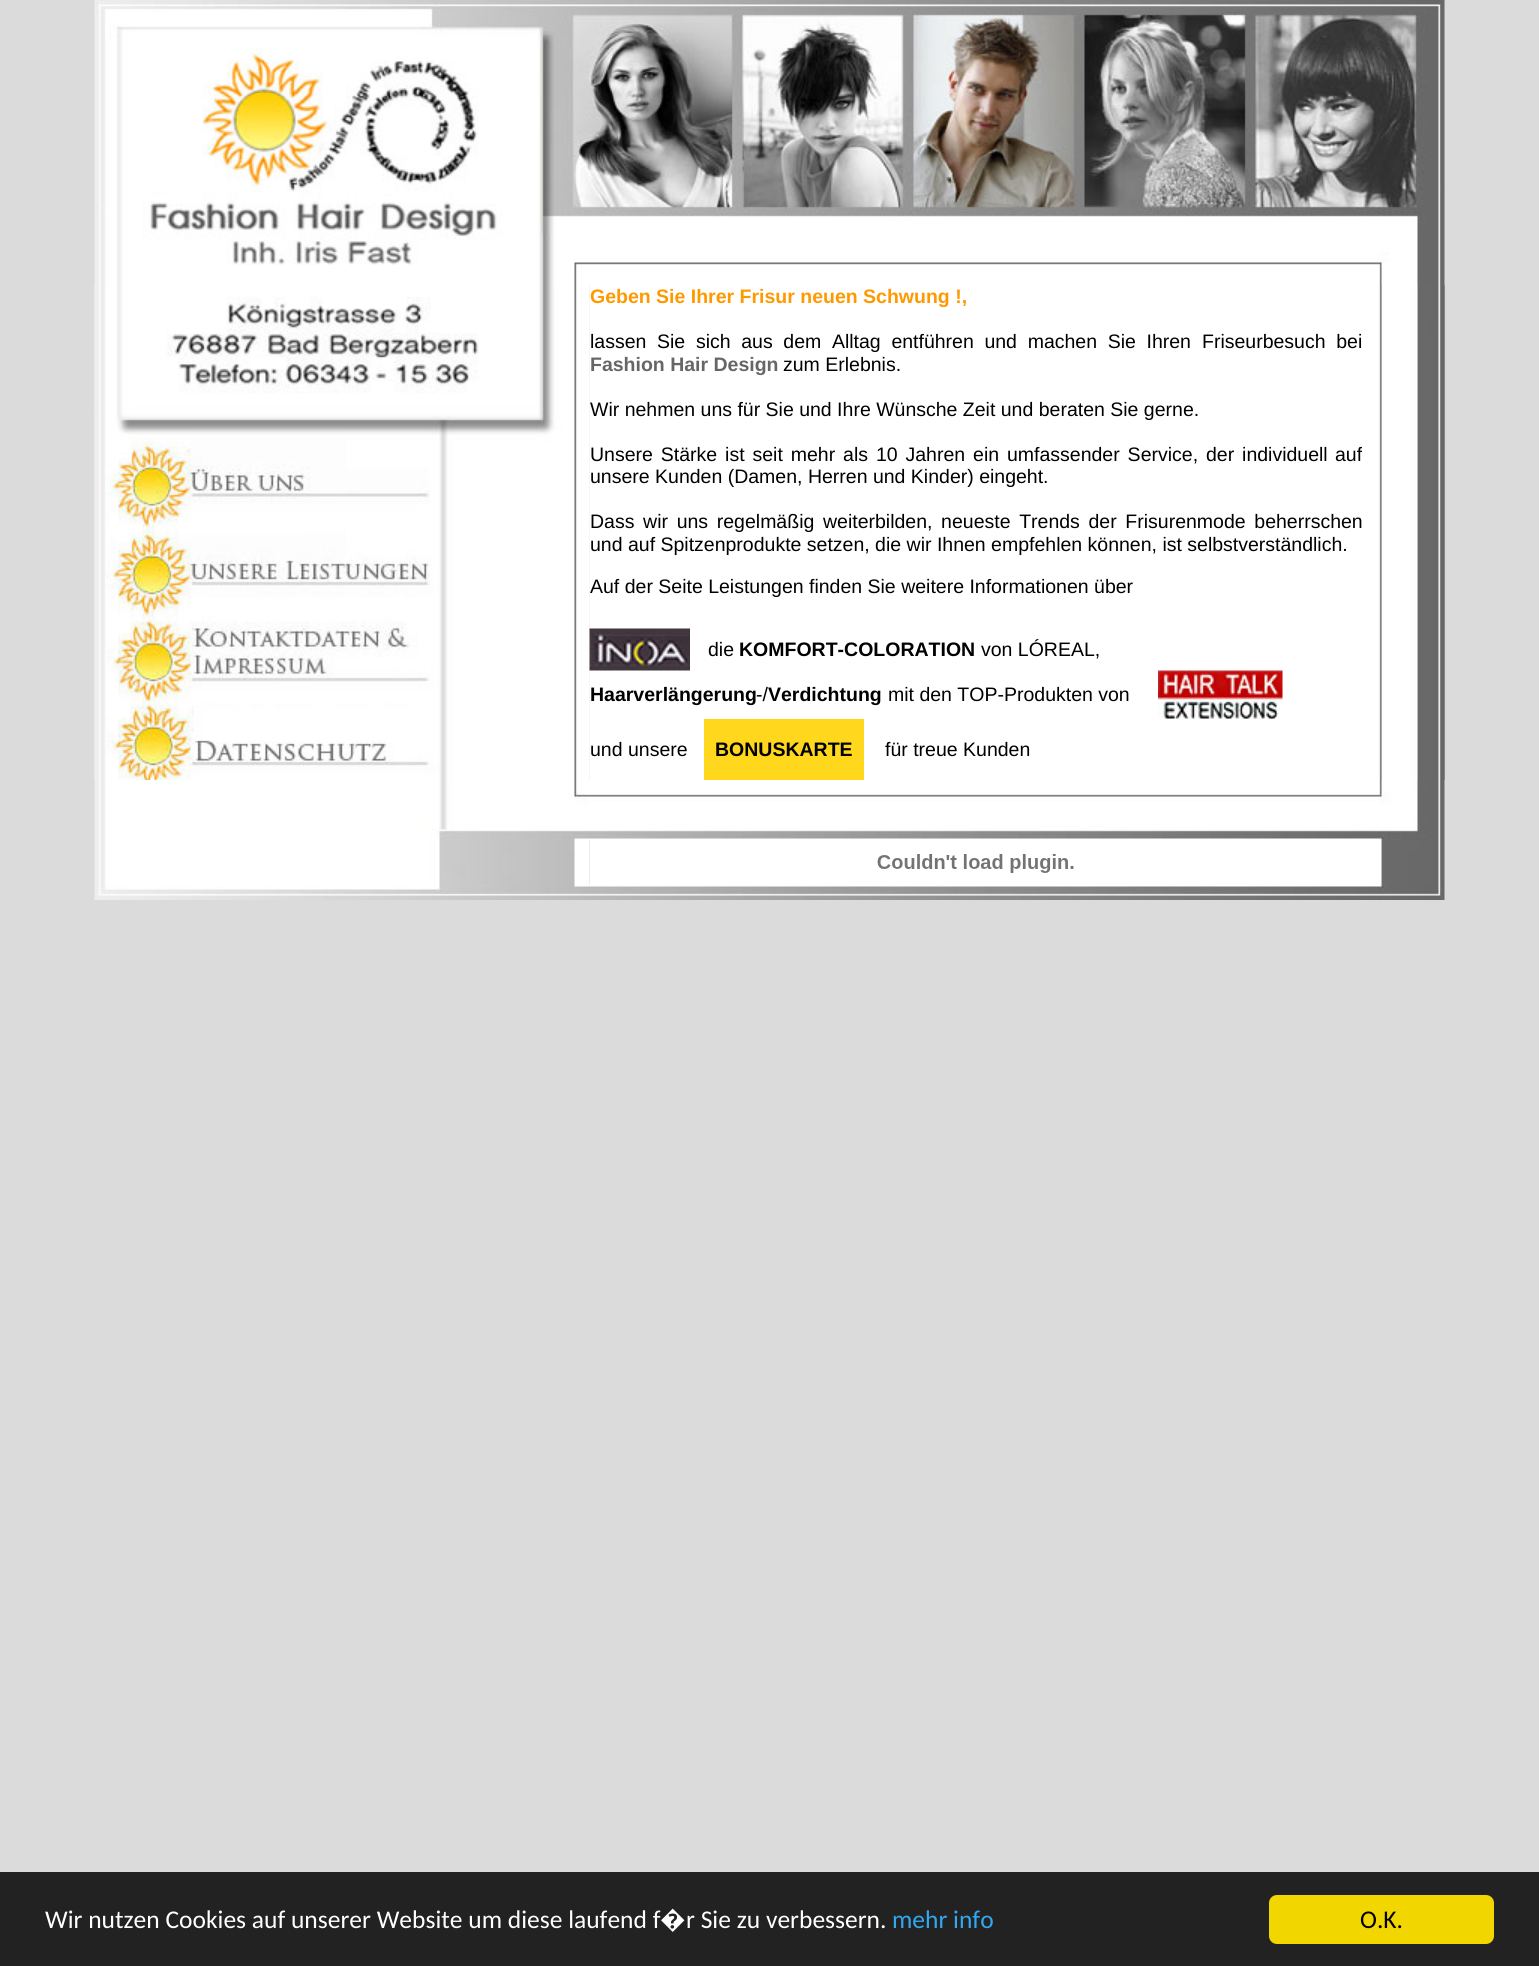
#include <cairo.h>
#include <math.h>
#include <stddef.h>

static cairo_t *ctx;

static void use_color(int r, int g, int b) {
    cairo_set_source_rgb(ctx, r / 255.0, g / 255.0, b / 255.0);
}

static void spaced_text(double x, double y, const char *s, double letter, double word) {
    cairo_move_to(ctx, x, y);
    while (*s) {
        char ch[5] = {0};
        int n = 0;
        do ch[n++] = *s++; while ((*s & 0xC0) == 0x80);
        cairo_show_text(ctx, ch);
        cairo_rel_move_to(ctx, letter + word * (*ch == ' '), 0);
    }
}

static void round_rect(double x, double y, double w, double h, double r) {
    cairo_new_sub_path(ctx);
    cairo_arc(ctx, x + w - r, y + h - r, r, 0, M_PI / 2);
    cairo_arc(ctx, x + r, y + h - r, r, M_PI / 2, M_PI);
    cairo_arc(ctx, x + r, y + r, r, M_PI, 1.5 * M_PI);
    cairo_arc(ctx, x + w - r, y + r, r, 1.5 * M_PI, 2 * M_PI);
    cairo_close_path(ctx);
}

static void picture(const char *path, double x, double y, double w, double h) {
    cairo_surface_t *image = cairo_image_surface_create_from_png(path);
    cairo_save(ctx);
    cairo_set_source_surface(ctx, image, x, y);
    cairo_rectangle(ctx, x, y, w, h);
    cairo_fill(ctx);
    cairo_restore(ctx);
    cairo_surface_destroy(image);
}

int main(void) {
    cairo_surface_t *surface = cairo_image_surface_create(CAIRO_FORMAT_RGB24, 1539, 1966);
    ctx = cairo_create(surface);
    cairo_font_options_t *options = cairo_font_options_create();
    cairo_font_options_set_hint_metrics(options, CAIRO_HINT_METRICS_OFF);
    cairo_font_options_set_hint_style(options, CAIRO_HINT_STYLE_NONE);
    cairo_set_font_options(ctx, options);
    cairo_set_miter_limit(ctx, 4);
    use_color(219, 219, 219);
    cairo_paint(ctx);
    picture("img1.png", 94, 0, 1351, 285);
    picture("img2.png", 94, 285, 496, 495);
    picture("img3.png", 94, 285, 496, 495);
    use_color(255, 255, 255);
    cairo_rectangle(ctx, 590, 285, 772, 495);
    cairo_fill(ctx);
    cairo_select_font_face(ctx, "Liberation Sans", CAIRO_FONT_SLANT_NORMAL, CAIRO_FONT_WEIGHT_BOLD);
    cairo_set_font_size(ctx, 19.5);
    use_color(255, 153, 0);
    cairo_move_to(ctx, 590, 303);
    cairo_show_text(ctx, "Geben Sie Ihrer Frisur neuen Schwung !,");
    cairo_select_font_face(ctx, "Liberation Sans", CAIRO_FONT_SLANT_NORMAL, CAIRO_FONT_WEIGHT_NORMAL);
    use_color(0, 0, 0);
    spaced_text(590, 348, "lassen Sie sich aus dem Alltag entführen und machen Sie Ihren", 0, 5.25);
    spaced_text(1202, 348, "Friseurbesuch bei", 0, 5.25);
    cairo_select_font_face(ctx, "Liberation Sans", CAIRO_FONT_SLANT_NORMAL, CAIRO_FONT_WEIGHT_BOLD);
    use_color(102, 102, 102);
    cairo_move_to(ctx, 590, 371);
    cairo_show_text(ctx, "Fashion Hair Design");
    cairo_select_font_face(ctx, "Liberation Sans", CAIRO_FONT_SLANT_NORMAL, CAIRO_FONT_WEIGHT_NORMAL);
    use_color(0, 0, 0);
    cairo_move_to(ctx, 783, 371);
    cairo_show_text(ctx, "zum Erlebnis.");
    cairo_move_to(ctx, 590, 416);
    cairo_show_text(ctx, "Wir nehmen uns für Sie und Ihre Wünsche Zeit und beraten Sie gerne.");
    spaced_text(590, 461, "Unsere Stärke ist seit mehr als 10 Jahren ein umfassender Service, der individuell", 0, 2.5);
    cairo_move_to(ctx, 1335, 461);
    cairo_show_text(ctx, "auf");
    cairo_move_to(ctx, 590, 483);
    cairo_show_text(ctx, "unsere Kunden (Damen, Herren und Kinder) eingeht.");
    spaced_text(590, 528, "Dass wir uns regelmäßig weiterbilden, neueste Trends der Frisurenmode beherrschen", 0, 3.25);
    cairo_move_to(ctx, 590, 551);
    cairo_show_text(ctx, "und auf Spitzenprodukte setzen, die wir Ihnen empfehlen können, ist selbstverständlich.");
    cairo_move_to(ctx, 590, 593);
    cairo_show_text(ctx, "Auf der Seite Leistungen finden Sie weitere Informationen über");
    picture("img4.png", 1362, 285, 83, 495);
    picture("img5.png", 1379, 285, 66, 495);
    picture("img6.png", 589, 628, 101, 43);
    cairo_move_to(ctx, 708, 656);
    cairo_show_text(ctx, "die");
    cairo_select_font_face(ctx, "Liberation Sans", CAIRO_FONT_SLANT_NORMAL, CAIRO_FONT_WEIGHT_BOLD);
    cairo_move_to(ctx, 739, 656);
    cairo_show_text(ctx, "KOMFORT-COLORATION");
    cairo_select_font_face(ctx, "Liberation Sans", CAIRO_FONT_SLANT_NORMAL, CAIRO_FONT_WEIGHT_NORMAL);
    cairo_move_to(ctx, 981, 656);
    cairo_show_text(ctx, "von LÓREAL,");
    cairo_select_font_face(ctx, "Liberation Sans", CAIRO_FONT_SLANT_NORMAL, CAIRO_FONT_WEIGHT_BOLD);
    cairo_move_to(ctx, 590, 701);
    cairo_show_text(ctx, "Haarverlängerung");
    cairo_select_font_face(ctx, "Liberation Sans", CAIRO_FONT_SLANT_NORMAL, CAIRO_FONT_WEIGHT_NORMAL);
    cairo_move_to(ctx, 756, 701);
    cairo_show_text(ctx, "-/");
    cairo_select_font_face(ctx, "Liberation Sans", CAIRO_FONT_SLANT_NORMAL, CAIRO_FONT_WEIGHT_BOLD);
    cairo_move_to(ctx, 768, 701);
    cairo_show_text(ctx, "Verdichtung");
    cairo_select_font_face(ctx, "Liberation Sans", CAIRO_FONT_SLANT_NORMAL, CAIRO_FONT_WEIGHT_NORMAL);
    cairo_move_to(ctx, 888, 701);
    cairo_show_text(ctx, "mit den TOP-Produkten von");
    picture("img7.png", 1158, 670, 125, 49);
    cairo_move_to(ctx, 590, 756);
    cairo_show_text(ctx, "und unsere");
    use_color(255, 215, 28);
    cairo_rectangle(ctx, 704, 719, 160, 61);
    cairo_fill(ctx);
    cairo_select_font_face(ctx, "Liberation Sans", CAIRO_FONT_SLANT_NORMAL, CAIRO_FONT_WEIGHT_BOLD);
    use_color(0, 0, 0);
    cairo_move_to(ctx, 715, 756);
    cairo_show_text(ctx, "BONUSKARTE");
    cairo_select_font_face(ctx, "Liberation Sans", CAIRO_FONT_SLANT_NORMAL, CAIRO_FONT_WEIGHT_NORMAL);
    cairo_move_to(ctx, 885, 756);
    cairo_show_text(ctx, "für treue Kunden");
    picture("img8.png", 94, 780, 1351, 60);
    picture("img9.png", 94, 840, 496, 45);
    use_color(255, 255, 255);
    cairo_rectangle(ctx, 590, 840, 772, 45);
    cairo_fill(ctx);
    picture("img10.png", 877, 854, 197, 19);
    picture("img11.png", 1362, 840, 83, 45);
    picture("img12.png", 94, 885, 1351, 15);
    use_color(34, 34, 34);
    cairo_rectangle(ctx, 0, 1872, 1539, 94);
    cairo_fill(ctx);
    cairo_select_font_face(ctx, "Carlito", CAIRO_FONT_SLANT_NORMAL, CAIRO_FONT_WEIGHT_NORMAL);
    cairo_set_font_size(ctx, 25.5);
    use_color(255, 255, 255);
    cairo_move_to(ctx, 45, 1928);
    cairo_show_text(ctx, "Wir nutzen Cookies auf unserer Website um diese laufend f");
    cairo_select_font_face(ctx, "Noto Sans", CAIRO_FONT_SLANT_NORMAL, CAIRO_FONT_WEIGHT_NORMAL);
    cairo_move_to(ctx, 660, 1928);
    cairo_show_text(ctx, "�");
    cairo_select_font_face(ctx, "Carlito", CAIRO_FONT_SLANT_NORMAL, CAIRO_FONT_WEIGHT_NORMAL);
    cairo_move_to(ctx, 686, 1928);
    cairo_show_text(ctx, "r Sie zu verbessern.");
    use_color(49, 168, 240);
    cairo_move_to(ctx, 892, 1928);
    cairo_show_text(ctx, "mehr info");
    use_color(241, 214, 0);
    round_rect(1269, 1895, 225, 49, 8);
    cairo_fill(ctx);
    use_color(0, 0, 0);
    cairo_move_to(ctx, 1360, 1928);
    cairo_show_text(ctx, "O.K.");
    cairo_surface_write_to_png(surface, "result.png");
    cairo_font_options_destroy(options);
    cairo_destroy(ctx);
    cairo_surface_destroy(surface);
    return 0;
}
